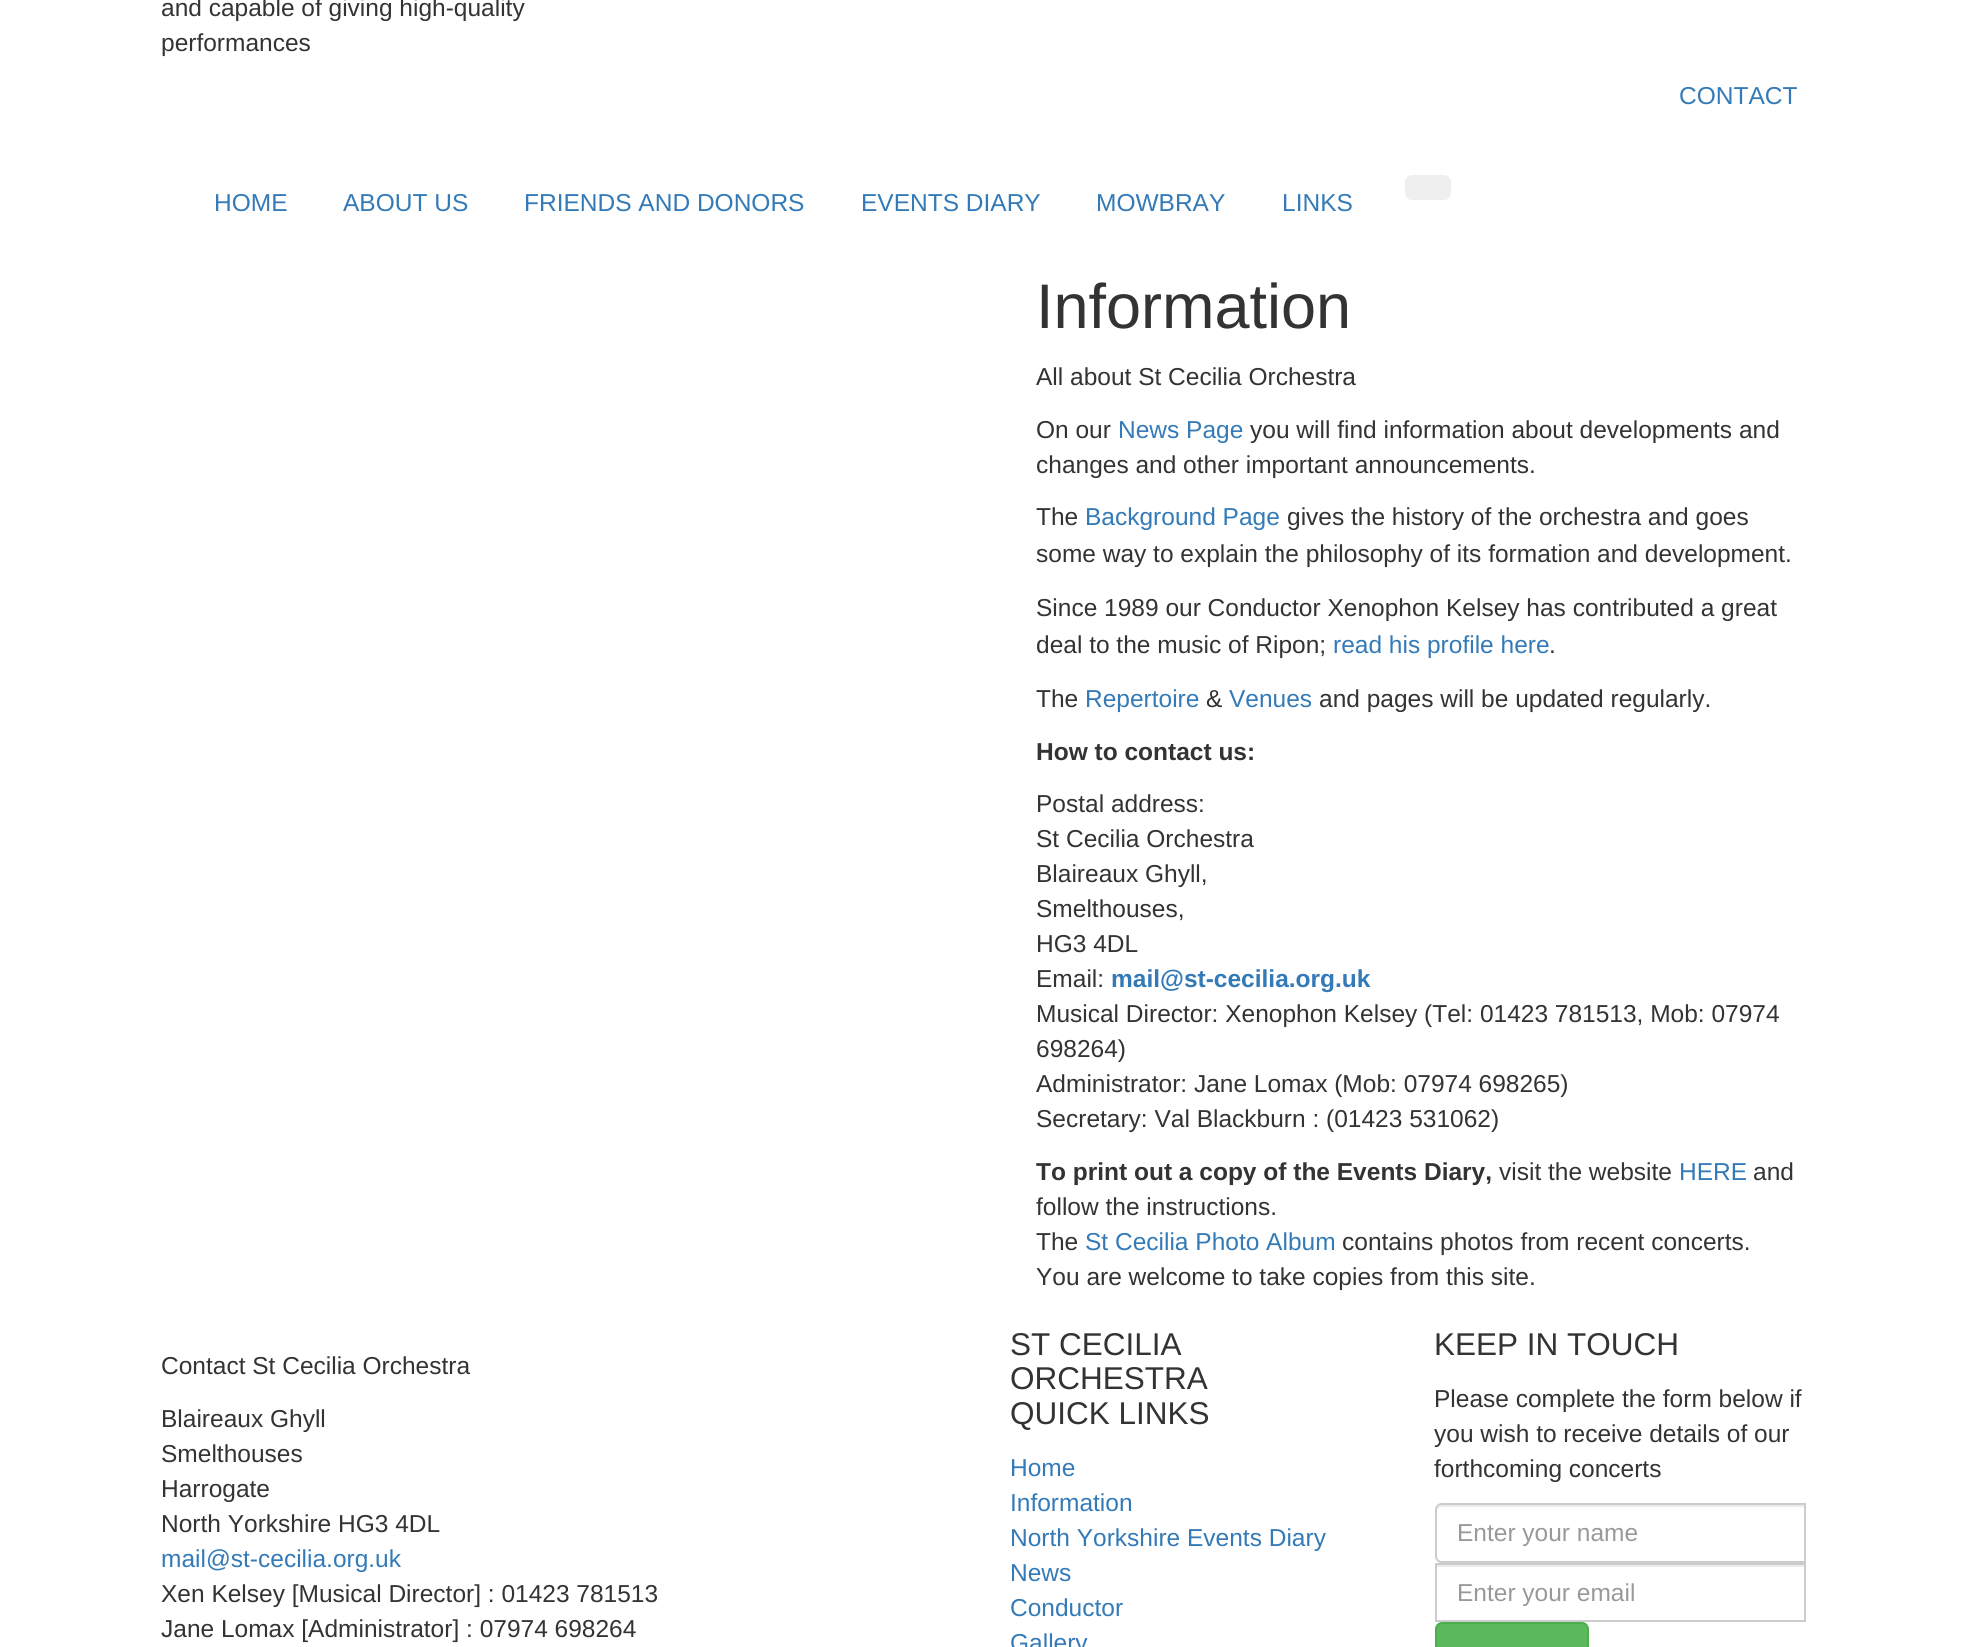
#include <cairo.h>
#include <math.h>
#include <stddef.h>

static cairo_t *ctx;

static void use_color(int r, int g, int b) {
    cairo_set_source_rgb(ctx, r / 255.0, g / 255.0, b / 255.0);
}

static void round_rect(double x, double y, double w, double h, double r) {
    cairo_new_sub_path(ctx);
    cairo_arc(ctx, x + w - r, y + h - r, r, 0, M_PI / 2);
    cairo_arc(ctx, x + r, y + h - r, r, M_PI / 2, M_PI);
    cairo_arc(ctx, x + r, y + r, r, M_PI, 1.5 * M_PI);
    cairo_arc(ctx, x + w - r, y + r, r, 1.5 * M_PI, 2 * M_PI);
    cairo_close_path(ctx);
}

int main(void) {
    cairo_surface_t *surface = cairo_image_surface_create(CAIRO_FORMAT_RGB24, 1966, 1647);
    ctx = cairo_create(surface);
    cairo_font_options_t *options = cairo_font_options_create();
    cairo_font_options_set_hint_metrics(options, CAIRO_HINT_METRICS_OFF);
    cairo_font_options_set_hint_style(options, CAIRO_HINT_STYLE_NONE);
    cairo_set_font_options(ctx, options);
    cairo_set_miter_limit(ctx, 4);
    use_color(255, 255, 255);
    cairo_paint(ctx);
    cairo_select_font_face(ctx, "Liberation Sans", CAIRO_FONT_SLANT_NORMAL, CAIRO_FONT_WEIGHT_NORMAL);
    cairo_set_font_size(ctx, 24.5);
    use_color(51, 51, 51);
    cairo_move_to(ctx, 161, 16);
    cairo_show_text(ctx, "and capable of giving high-quality");
    cairo_move_to(ctx, 161, 51);
    cairo_show_text(ctx, "performances");
    use_color(51, 122, 183);
    cairo_move_to(ctx, 1679, 104);
    cairo_show_text(ctx, "CONTACT");
    use_color(239, 239, 239);
    round_rect(1405, 175, 46, 25, 7);
    cairo_fill(ctx);
    use_color(51, 122, 183);
    cairo_move_to(ctx, 214, 211);
    cairo_show_text(ctx, "HOME");
    cairo_move_to(ctx, 343, 211);
    cairo_show_text(ctx, "ABOUT US");
    cairo_move_to(ctx, 524, 211);
    cairo_show_text(ctx, "FRIENDS AND DONORS");
    cairo_move_to(ctx, 861, 211);
    cairo_show_text(ctx, "EVENTS DIARY");
    cairo_move_to(ctx, 1096, 211);
    cairo_show_text(ctx, "MOWBRAY");
    cairo_move_to(ctx, 1282, 211);
    cairo_show_text(ctx, "LINKS");
    cairo_set_font_size(ctx, 63);
    use_color(51, 51, 51);
    cairo_move_to(ctx, 1036, 328);
    cairo_show_text(ctx, "Information");
    cairo_set_font_size(ctx, 24.5);
    cairo_move_to(ctx, 1036, 385);
    cairo_show_text(ctx, "All about St Cecilia Orchestra");
    cairo_move_to(ctx, 1036, 438);
    cairo_show_text(ctx, "On our");
    use_color(51, 122, 183);
    cairo_move_to(ctx, 1118, 438);
    cairo_show_text(ctx, "News Page");
    use_color(51, 51, 51);
    cairo_move_to(ctx, 1250, 438);
    cairo_show_text(ctx, "you will find information about developments and");
    cairo_move_to(ctx, 1036, 473);
    cairo_show_text(ctx, "changes and other important announcements.");
    cairo_move_to(ctx, 1036, 525);
    cairo_show_text(ctx, "The");
    use_color(51, 122, 183);
    cairo_move_to(ctx, 1085, 525);
    cairo_show_text(ctx, "Background Page");
    use_color(51, 51, 51);
    cairo_move_to(ctx, 1287, 525);
    cairo_show_text(ctx, "gives the history of the orchestra and goes");
    cairo_move_to(ctx, 1036, 562);
    cairo_show_text(ctx, "some way to explain the philosophy of its formation and development.");
    cairo_move_to(ctx, 1036, 616);
    cairo_show_text(ctx, "Since 1989 our Conductor Xenophon Kelsey has contributed a great");
    cairo_move_to(ctx, 1036, 653);
    cairo_show_text(ctx, "deal to the music of Ripon;");
    use_color(51, 122, 183);
    cairo_move_to(ctx, 1333, 653);
    cairo_show_text(ctx, "read his profile here");
    use_color(51, 51, 51);
    cairo_move_to(ctx, 1549, 653);
    cairo_show_text(ctx, ".");
    cairo_move_to(ctx, 1036, 707);
    cairo_show_text(ctx, "The");
    use_color(51, 122, 183);
    cairo_move_to(ctx, 1085, 707);
    cairo_show_text(ctx, "Repertoire");
    use_color(51, 51, 51);
    cairo_move_to(ctx, 1206, 707);
    cairo_show_text(ctx, "&");
    use_color(51, 122, 183);
    cairo_move_to(ctx, 1229, 707);
    cairo_show_text(ctx, "Venues");
    use_color(51, 51, 51);
    cairo_move_to(ctx, 1319, 707);
    cairo_show_text(ctx, "and pages will be updated regularly.");
    cairo_select_font_face(ctx, "Liberation Sans", CAIRO_FONT_SLANT_NORMAL, CAIRO_FONT_WEIGHT_BOLD);
    cairo_move_to(ctx, 1036, 760);
    cairo_show_text(ctx, "How to contact us:");
    cairo_select_font_face(ctx, "Liberation Sans", CAIRO_FONT_SLANT_NORMAL, CAIRO_FONT_WEIGHT_NORMAL);
    cairo_move_to(ctx, 1036, 812);
    cairo_show_text(ctx, "Postal address:");
    cairo_move_to(ctx, 1036, 847);
    cairo_show_text(ctx, "St Cecilia Orchestra");
    cairo_move_to(ctx, 1036, 882);
    cairo_show_text(ctx, "Blaireaux Ghyll,");
    cairo_move_to(ctx, 1036, 917);
    cairo_show_text(ctx, "Smelthouses,");
    cairo_move_to(ctx, 1036, 952);
    cairo_show_text(ctx, "HG3 4DL");
    cairo_move_to(ctx, 1036, 987);
    cairo_show_text(ctx, "Email:");
    cairo_select_font_face(ctx, "Liberation Sans", CAIRO_FONT_SLANT_NORMAL, CAIRO_FONT_WEIGHT_BOLD);
    use_color(51, 122, 183);
    cairo_move_to(ctx, 1111, 987);
    cairo_show_text(ctx, "mail@st-cecilia.org.uk");
    cairo_select_font_face(ctx, "Liberation Sans", CAIRO_FONT_SLANT_NORMAL, CAIRO_FONT_WEIGHT_NORMAL);
    use_color(51, 51, 51);
    cairo_move_to(ctx, 1036, 1022);
    cairo_show_text(ctx, "Musical Director: Xenophon Kelsey (Tel: 01423 781513, Mob: 07974");
    cairo_move_to(ctx, 1036, 1057);
    cairo_show_text(ctx, "698264)");
    cairo_move_to(ctx, 1036, 1092);
    cairo_show_text(ctx, "Administrator: Jane Lomax (Mob: 07974 698265)");
    cairo_move_to(ctx, 1036, 1127);
    cairo_show_text(ctx, "Secretary: Val Blackburn : (01423 531062)");
    cairo_select_font_face(ctx, "Liberation Sans", CAIRO_FONT_SLANT_NORMAL, CAIRO_FONT_WEIGHT_BOLD);
    cairo_move_to(ctx, 1036, 1180);
    cairo_show_text(ctx, "To print out a copy of the Events Diary,");
    cairo_select_font_face(ctx, "Liberation Sans", CAIRO_FONT_SLANT_NORMAL, CAIRO_FONT_WEIGHT_NORMAL);
    cairo_move_to(ctx, 1499, 1180);
    cairo_show_text(ctx, "visit the website");
    use_color(51, 122, 183);
    cairo_move_to(ctx, 1679, 1180);
    cairo_show_text(ctx, "HERE");
    use_color(51, 51, 51);
    cairo_move_to(ctx, 1753, 1180);
    cairo_show_text(ctx, "and");
    cairo_move_to(ctx, 1036, 1215);
    cairo_show_text(ctx, "follow the instructions.");
    cairo_move_to(ctx, 1036, 1250);
    cairo_show_text(ctx, "The");
    use_color(51, 122, 183);
    cairo_move_to(ctx, 1085, 1250);
    cairo_show_text(ctx, "St Cecilia Photo Album");
    use_color(51, 51, 51);
    cairo_move_to(ctx, 1342, 1250);
    cairo_show_text(ctx, "contains photos from recent concerts.");
    cairo_move_to(ctx, 1036, 1285);
    cairo_show_text(ctx, "You are welcome to take copies from this site.");
    cairo_move_to(ctx, 161, 1374);
    cairo_show_text(ctx, "Contact St Cecilia Orchestra");
    cairo_move_to(ctx, 161, 1427);
    cairo_show_text(ctx, "Blaireaux Ghyll");
    cairo_move_to(ctx, 161, 1462);
    cairo_show_text(ctx, "Smelthouses");
    cairo_move_to(ctx, 161, 1497);
    cairo_show_text(ctx, "Harrogate");
    cairo_move_to(ctx, 161, 1532);
    cairo_show_text(ctx, "North Yorkshire HG3 4DL");
    use_color(51, 122, 183);
    cairo_move_to(ctx, 161, 1567);
    cairo_show_text(ctx, "mail@st-cecilia.org.uk");
    use_color(51, 51, 51);
    cairo_move_to(ctx, 161, 1602);
    cairo_show_text(ctx, "Xen Kelsey [Musical Director] : 01423 781513");
    cairo_move_to(ctx, 161, 1637);
    cairo_show_text(ctx, "Jane Lomax [Administrator] : 07974 698264");
    cairo_set_font_size(ctx, 31.5);
    cairo_move_to(ctx, 1010, 1355);
    cairo_show_text(ctx, "ST CECILIA");
    cairo_move_to(ctx, 1010, 1389);
    cairo_show_text(ctx, "ORCHESTRA");
    cairo_move_to(ctx, 1010, 1424);
    cairo_show_text(ctx, "QUICK LINKS");
    cairo_set_font_size(ctx, 24.5);
    use_color(51, 122, 183);
    cairo_move_to(ctx, 1010, 1476);
    cairo_show_text(ctx, "Home");
    cairo_move_to(ctx, 1010, 1511);
    cairo_show_text(ctx, "Information");
    cairo_move_to(ctx, 1010, 1546);
    cairo_show_text(ctx, "North Yorkshire Events Diary");
    cairo_move_to(ctx, 1010, 1581);
    cairo_show_text(ctx, "News");
    cairo_move_to(ctx, 1010, 1616);
    cairo_show_text(ctx, "Conductor");
    cairo_move_to(ctx, 1010, 1651);
    cairo_show_text(ctx, "Gallery");
    cairo_set_font_size(ctx, 31.5);
    use_color(51, 51, 51);
    cairo_move_to(ctx, 1434, 1355);
    cairo_show_text(ctx, "KEEP IN TOUCH");
    cairo_set_font_size(ctx, 24.5);
    cairo_move_to(ctx, 1434, 1407);
    cairo_show_text(ctx, "Please complete the form below if");
    cairo_move_to(ctx, 1434, 1442);
    cairo_show_text(ctx, "you wish to receive details of our");
    cairo_move_to(ctx, 1434, 1477);
    cairo_show_text(ctx, "forthcoming concerts");
    use_color(236, 236, 236);
    cairo_new_path(ctx);
    cairo_move_to(ctx, 1442, 1507);
    cairo_line_to(ctx, 1804, 1507);
    cairo_line_to(ctx, 1804, 1505);
    cairo_line_to(ctx, 1442, 1505);
    cairo_curve_to(ctx, 1438, 1505, 1437, 1509, 1437, 1512);
    cairo_curve_to(ctx, 1437, 1509, 1439, 1507, 1442, 1507);
    cairo_close_path(ctx);
    cairo_fill(ctx);
    cairo_new_path(ctx);
    cairo_move_to(ctx, 1442, 1504);
    cairo_line_to(ctx, 1805, 1504);
    cairo_line_to(ctx, 1805, 1562);
    cairo_line_to(ctx, 1442, 1562);
    cairo_curve_to(ctx, 1438.5, 1562, 1436, 1559.5, 1436, 1556);
    cairo_line_to(ctx, 1436, 1510);
    cairo_curve_to(ctx, 1436, 1506.5, 1438.5, 1504, 1442, 1504);
    cairo_close_path(ctx);
    use_color(204, 204, 204);
    cairo_stroke(ctx);
    use_color(153, 153, 153);
    cairo_move_to(ctx, 1457, 1541);
    cairo_show_text(ctx, "Enter your name");
    use_color(236, 236, 236);
    cairo_rectangle(ctx, 1437, 1565, 367, 2);
    cairo_fill(ctx);
    cairo_rectangle(ctx, 1436, 1564, 369, 57);
    use_color(204, 204, 204);
    cairo_stroke(ctx);
    use_color(153, 153, 153);
    cairo_move_to(ctx, 1457, 1601);
    cairo_show_text(ctx, "Enter your email");
    use_color(92, 184, 92);
    round_rect(1436, 1623, 152, 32, 6);
    cairo_fill_preserve(ctx);
    use_color(76, 174, 76);
    cairo_stroke(ctx);
    cairo_surface_write_to_png(surface, "result.png");
    cairo_font_options_destroy(options);
    cairo_destroy(ctx);
    cairo_surface_destroy(surface);
    return 0;
}
